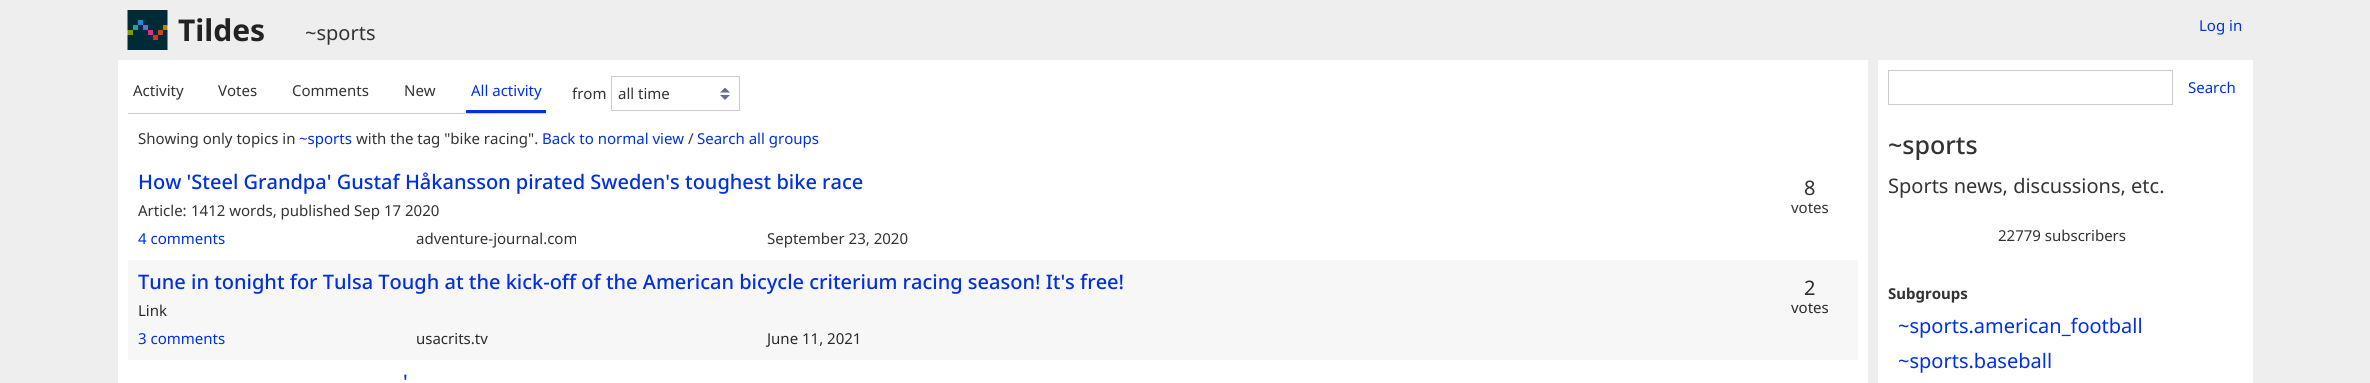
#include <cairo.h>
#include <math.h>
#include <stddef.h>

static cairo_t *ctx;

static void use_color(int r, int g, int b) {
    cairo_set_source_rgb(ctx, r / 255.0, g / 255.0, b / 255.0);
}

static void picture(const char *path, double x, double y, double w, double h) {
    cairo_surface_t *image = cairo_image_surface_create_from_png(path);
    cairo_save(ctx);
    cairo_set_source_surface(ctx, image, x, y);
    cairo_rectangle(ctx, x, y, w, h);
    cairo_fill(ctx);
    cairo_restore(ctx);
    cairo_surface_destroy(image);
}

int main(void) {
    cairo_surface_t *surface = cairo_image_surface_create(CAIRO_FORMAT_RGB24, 2370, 383);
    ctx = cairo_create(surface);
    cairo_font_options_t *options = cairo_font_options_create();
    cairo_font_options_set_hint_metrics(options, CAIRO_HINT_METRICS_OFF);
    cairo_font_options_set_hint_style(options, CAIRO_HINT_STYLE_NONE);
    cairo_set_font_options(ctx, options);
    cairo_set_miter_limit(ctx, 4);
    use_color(238, 238, 238);
    cairo_paint(ctx);
    picture("img1.png", 127, 10, 41, 40);
    cairo_select_font_face(ctx, "Noto Sans", CAIRO_FONT_SLANT_NORMAL, CAIRO_FONT_WEIGHT_BOLD);
    cairo_set_font_size(ctx, 30);
    use_color(34, 34, 34);
    cairo_move_to(ctx, 178, 41);
    cairo_show_text(ctx, "Tildes");
    cairo_select_font_face(ctx, "Noto Sans", CAIRO_FONT_SLANT_NORMAL, CAIRO_FONT_WEIGHT_NORMAL);
    cairo_set_font_size(ctx, 20);
    use_color(51, 51, 51);
    cairo_move_to(ctx, 305, 40);
    cairo_show_text(ctx, "~sports");
    cairo_set_font_size(ctx, 15);
    use_color(0, 48, 224);
    cairo_move_to(ctx, 2199, 31);
    cairo_show_text(ctx, "Log in");
    use_color(255, 255, 255);
    cairo_rectangle(ctx, 118, 60, 1750, 323);
    cairo_fill(ctx);
    use_color(204, 204, 204);
    cairo_rectangle(ctx, 128, 113, 418, 1);
    cairo_fill(ctx);
    use_color(51, 51, 51);
    cairo_move_to(ctx, 133, 96);
    cairo_show_text(ctx, "Activity");
    cairo_move_to(ctx, 218, 96);
    cairo_show_text(ctx, "Votes");
    cairo_move_to(ctx, 292, 96);
    cairo_show_text(ctx, "Comments");
    cairo_move_to(ctx, 404, 96);
    cairo_show_text(ctx, "New");
    use_color(0, 48, 224);
    cairo_rectangle(ctx, 466, 110, 80, 3);
    cairo_fill(ctx);
    cairo_move_to(ctx, 471, 96);
    cairo_show_text(ctx, "All activity");
    use_color(51, 51, 51);
    cairo_move_to(ctx, 572, 99);
    cairo_show_text(ctx, "from");
    picture("img2.png", 720, 88, 10, 12);
    cairo_rectangle(ctx, 611.5, 76.5, 128, 34);
    use_color(204, 204, 204);
    cairo_set_line_width(ctx, 1);
    cairo_stroke(ctx);
    use_color(51, 51, 51);
    cairo_move_to(ctx, 618, 99);
    cairo_show_text(ctx, "all time");
    cairo_move_to(ctx, 138, 144);
    cairo_show_text(ctx, "Showing only topics in");
    use_color(0, 48, 224);
    cairo_move_to(ctx, 299, 144);
    cairo_show_text(ctx, "~sports");
    use_color(51, 51, 51);
    cairo_move_to(ctx, 356, 144);
    cairo_show_text(ctx, "with the tag \"bike racing\".");
    use_color(0, 48, 224);
    cairo_move_to(ctx, 542, 144);
    cairo_show_text(ctx, "Back to normal view");
    use_color(51, 51, 51);
    cairo_move_to(ctx, 688, 144);
    cairo_show_text(ctx, "/");
    use_color(0, 48, 224);
    cairo_move_to(ctx, 697, 144);
    cairo_show_text(ctx, "Search all groups");
    cairo_select_font_face(ctx, "Noto Sans Medium", CAIRO_FONT_SLANT_NORMAL, CAIRO_FONT_WEIGHT_NORMAL);
    cairo_set_font_size(ctx, 20);
    cairo_move_to(ctx, 138, 189);
    cairo_show_text(ctx, "How 'Steel Grandpa' Gustaf Håkansson pirated Sweden's toughest bike race");
    cairo_select_font_face(ctx, "Noto Sans", CAIRO_FONT_SLANT_NORMAL, CAIRO_FONT_WEIGHT_NORMAL);
    use_color(51, 51, 51);
    cairo_move_to(ctx, 1804, 195);
    cairo_show_text(ctx, "8");
    cairo_set_font_size(ctx, 15);
    cairo_move_to(ctx, 1791, 213);
    cairo_show_text(ctx, "votes");
    cairo_move_to(ctx, 138, 216);
    cairo_show_text(ctx, "Article:");
    cairo_move_to(ctx, 191, 216);
    cairo_show_text(ctx, "1412 words, published Sep 17 2020");
    use_color(0, 48, 224);
    cairo_move_to(ctx, 138, 244);
    cairo_show_text(ctx, "4 comments");
    use_color(51, 51, 51);
    cairo_move_to(ctx, 416, 244);
    cairo_show_text(ctx, "adventure-journal.com");
    cairo_move_to(ctx, 767, 244);
    cairo_show_text(ctx, "September 23, 2020");
    use_color(247, 247, 247);
    cairo_rectangle(ctx, 128, 260, 1730, 100);
    cairo_fill(ctx);
    cairo_select_font_face(ctx, "Noto Sans Medium", CAIRO_FONT_SLANT_NORMAL, CAIRO_FONT_WEIGHT_NORMAL);
    cairo_set_font_size(ctx, 20);
    use_color(0, 48, 224);
    cairo_move_to(ctx, 138, 289);
    cairo_show_text(ctx, "Tune in tonight for Tulsa Tough at the kick-off of the American bicycle criterium racing season! It's free!");
    cairo_select_font_face(ctx, "Noto Sans", CAIRO_FONT_SLANT_NORMAL, CAIRO_FONT_WEIGHT_NORMAL);
    use_color(43, 43, 43);
    cairo_move_to(ctx, 1804, 295);
    cairo_show_text(ctx, "2");
    cairo_set_font_size(ctx, 15);
    cairo_move_to(ctx, 1791, 313);
    cairo_show_text(ctx, "votes");
    cairo_move_to(ctx, 138, 316);
    cairo_show_text(ctx, "Link");
    use_color(0, 48, 224);
    cairo_move_to(ctx, 138, 344);
    cairo_show_text(ctx, "3 comments");
    use_color(43, 43, 43);
    cairo_move_to(ctx, 416, 344);
    cairo_show_text(ctx, "usacrits.tv");
    cairo_move_to(ctx, 767, 344);
    cairo_show_text(ctx, "June 11, 2021");
    cairo_select_font_face(ctx, "Noto Sans Medium", CAIRO_FONT_SLANT_NORMAL, CAIRO_FONT_WEIGHT_NORMAL);
    cairo_set_font_size(ctx, 20);
    use_color(0, 48, 224);
    cairo_move_to(ctx, 403, 389);
    cairo_show_text(ctx, "'");
    use_color(255, 255, 255);
    cairo_rectangle(ctx, 1878, 60, 375, 323);
    cairo_fill(ctx);
    cairo_rectangle(ctx, 1888.5, 70.5, 284, 34);
    use_color(204, 204, 204);
    cairo_stroke(ctx);
    cairo_select_font_face(ctx, "Noto Sans", CAIRO_FONT_SLANT_NORMAL, CAIRO_FONT_WEIGHT_NORMAL);
    cairo_set_font_size(ctx, 15);
    use_color(0, 48, 224);
    cairo_move_to(ctx, 2188, 93);
    cairo_show_text(ctx, "Search");
    cairo_select_font_face(ctx, "Noto Sans Medium", CAIRO_FONT_SLANT_NORMAL, CAIRO_FONT_WEIGHT_NORMAL);
    cairo_set_font_size(ctx, 25);
    use_color(51, 51, 51);
    cairo_move_to(ctx, 1888, 154);
    cairo_show_text(ctx, "~sports");
    cairo_select_font_face(ctx, "Noto Sans", CAIRO_FONT_SLANT_NORMAL, CAIRO_FONT_WEIGHT_NORMAL);
    cairo_set_font_size(ctx, 20);
    cairo_move_to(ctx, 1888, 193);
    cairo_show_text(ctx, "Sports news, discussions, etc.");
    cairo_set_font_size(ctx, 15);
    cairo_move_to(ctx, 1998, 241);
    cairo_show_text(ctx, "22779 subscribers");
    cairo_select_font_face(ctx, "Noto Sans", CAIRO_FONT_SLANT_NORMAL, CAIRO_FONT_WEIGHT_BOLD);
    cairo_move_to(ctx, 1888, 299);
    cairo_show_text(ctx, "Subgroups");
    cairo_select_font_face(ctx, "Noto Sans", CAIRO_FONT_SLANT_NORMAL, CAIRO_FONT_WEIGHT_NORMAL);
    cairo_set_font_size(ctx, 20);
    use_color(0, 48, 224);
    cairo_move_to(ctx, 1898, 333);
    cairo_show_text(ctx, "~sports.american_football");
    cairo_move_to(ctx, 1898, 368);
    cairo_show_text(ctx, "~sports.baseball");
    cairo_surface_write_to_png(surface, "result.png");
    cairo_font_options_destroy(options);
    cairo_destroy(ctx);
    cairo_surface_destroy(surface);
    return 0;
}
